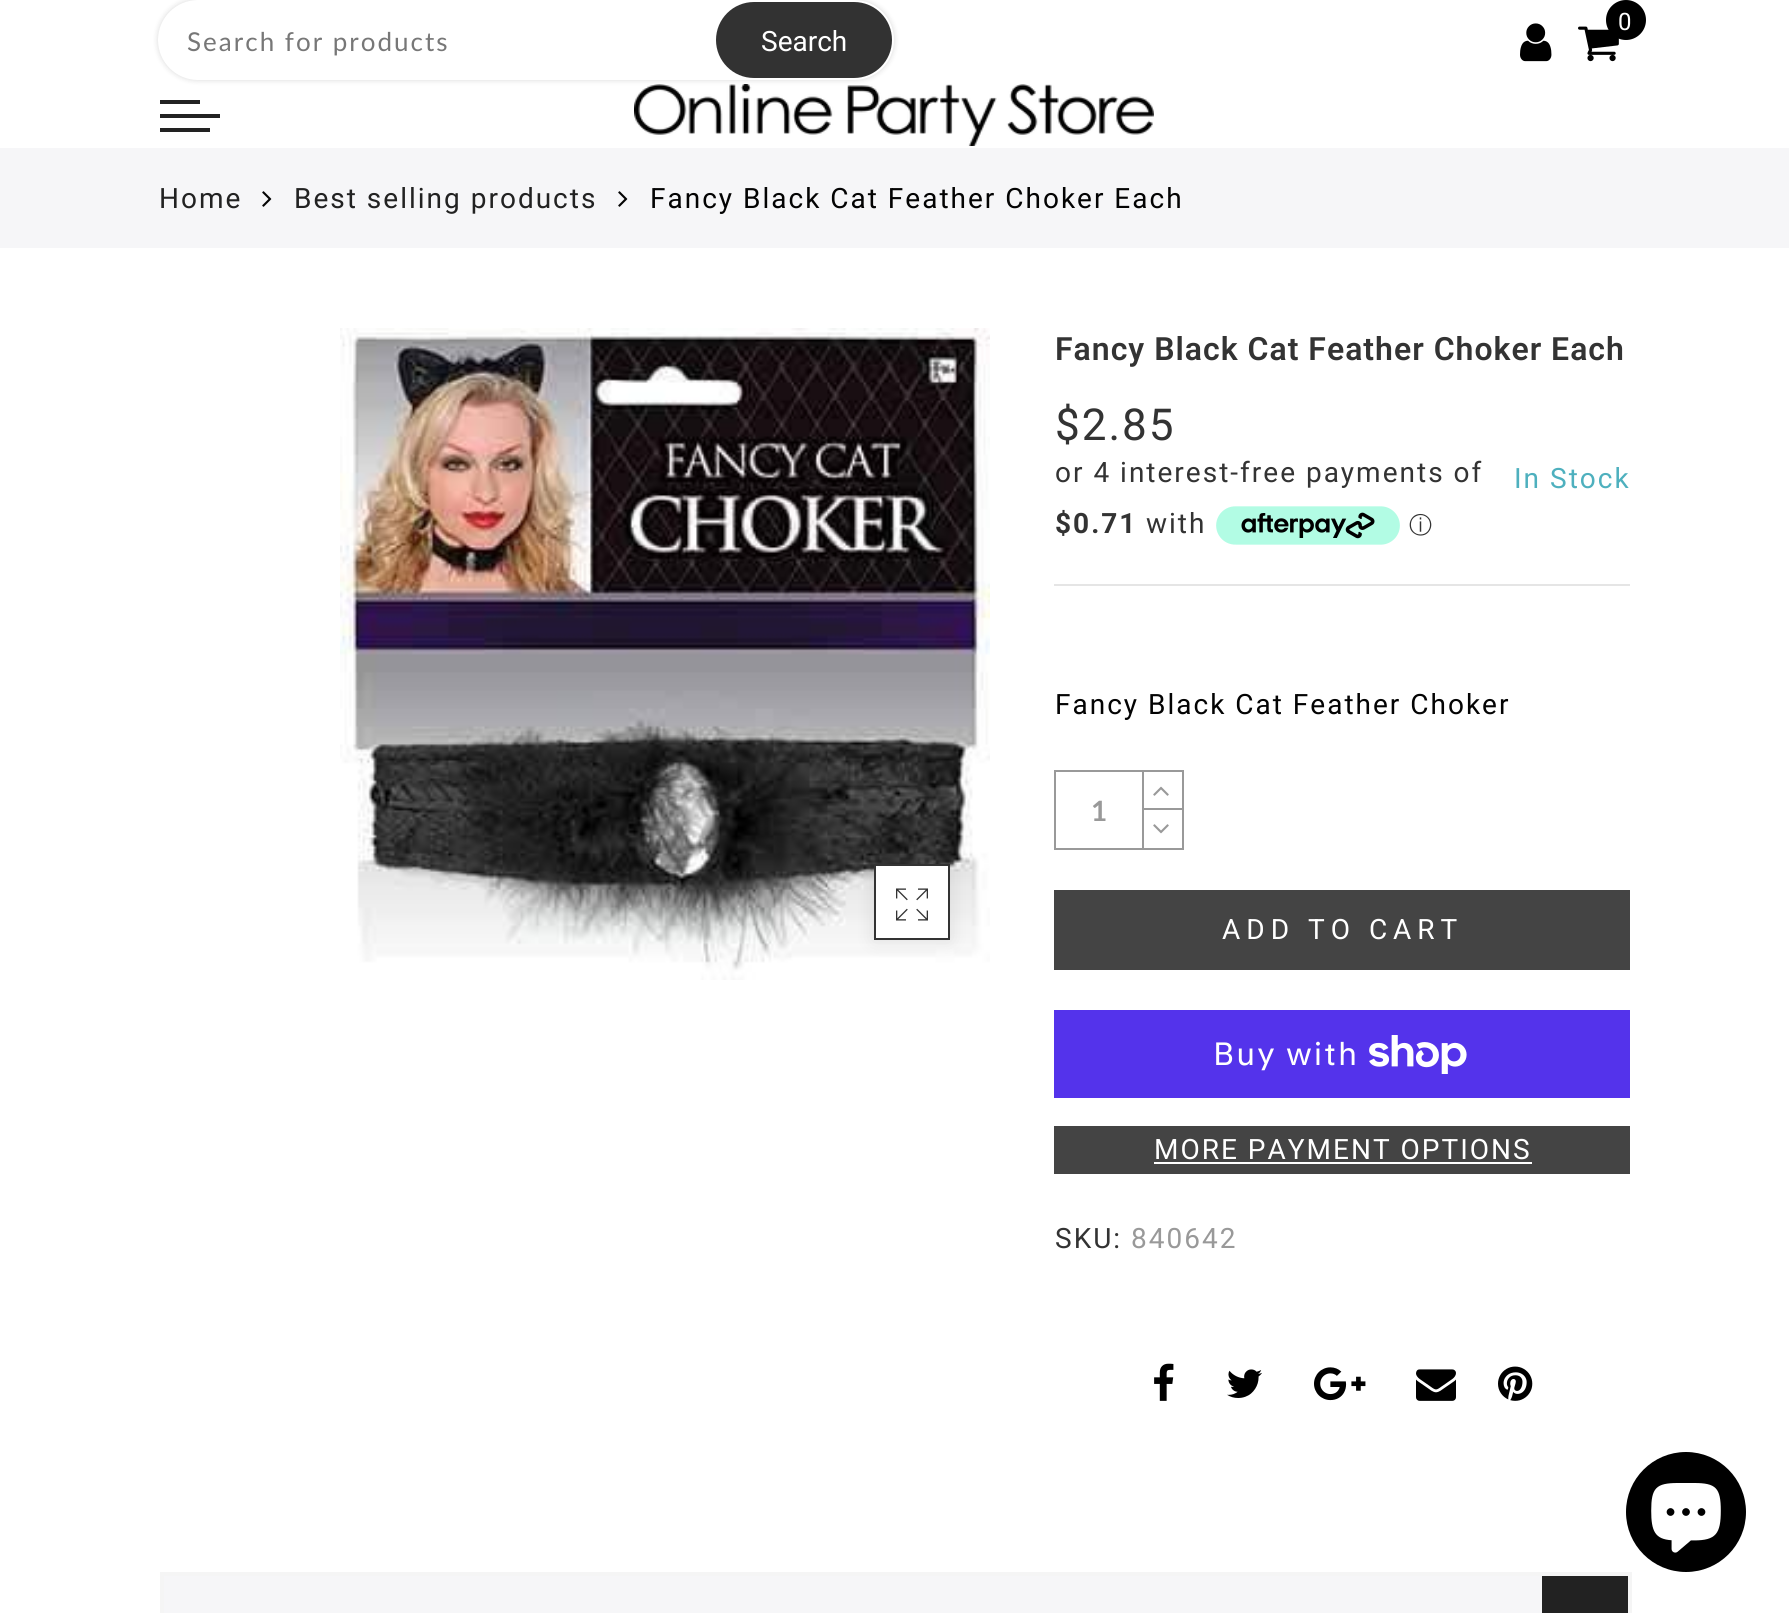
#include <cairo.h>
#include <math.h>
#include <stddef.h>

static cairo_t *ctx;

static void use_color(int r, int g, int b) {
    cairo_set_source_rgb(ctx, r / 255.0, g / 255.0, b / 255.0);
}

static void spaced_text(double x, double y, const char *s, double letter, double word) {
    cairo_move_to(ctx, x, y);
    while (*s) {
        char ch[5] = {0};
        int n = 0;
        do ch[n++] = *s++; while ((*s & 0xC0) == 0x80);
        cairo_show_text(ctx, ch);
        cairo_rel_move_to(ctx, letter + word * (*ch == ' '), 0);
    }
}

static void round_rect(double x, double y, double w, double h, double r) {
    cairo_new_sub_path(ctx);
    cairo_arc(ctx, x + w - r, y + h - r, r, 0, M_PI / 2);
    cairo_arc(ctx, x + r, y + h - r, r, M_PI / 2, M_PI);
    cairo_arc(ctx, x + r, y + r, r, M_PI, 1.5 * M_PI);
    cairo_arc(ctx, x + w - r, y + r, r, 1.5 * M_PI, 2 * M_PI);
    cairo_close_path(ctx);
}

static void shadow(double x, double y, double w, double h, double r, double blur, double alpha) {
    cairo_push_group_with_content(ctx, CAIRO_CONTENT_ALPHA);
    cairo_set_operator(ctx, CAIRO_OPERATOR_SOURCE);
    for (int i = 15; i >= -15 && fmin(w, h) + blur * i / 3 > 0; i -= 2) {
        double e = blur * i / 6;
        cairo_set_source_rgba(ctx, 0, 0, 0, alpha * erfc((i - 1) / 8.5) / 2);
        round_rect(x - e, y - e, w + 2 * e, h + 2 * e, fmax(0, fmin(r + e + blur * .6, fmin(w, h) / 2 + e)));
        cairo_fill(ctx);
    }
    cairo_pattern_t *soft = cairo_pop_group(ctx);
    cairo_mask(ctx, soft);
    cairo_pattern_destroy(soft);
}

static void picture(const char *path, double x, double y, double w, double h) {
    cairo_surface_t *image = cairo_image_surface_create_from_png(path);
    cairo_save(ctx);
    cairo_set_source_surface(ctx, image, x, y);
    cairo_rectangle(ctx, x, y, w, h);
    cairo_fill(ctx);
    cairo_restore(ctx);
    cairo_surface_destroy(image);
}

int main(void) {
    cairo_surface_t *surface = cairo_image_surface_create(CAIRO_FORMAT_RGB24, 1789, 1613);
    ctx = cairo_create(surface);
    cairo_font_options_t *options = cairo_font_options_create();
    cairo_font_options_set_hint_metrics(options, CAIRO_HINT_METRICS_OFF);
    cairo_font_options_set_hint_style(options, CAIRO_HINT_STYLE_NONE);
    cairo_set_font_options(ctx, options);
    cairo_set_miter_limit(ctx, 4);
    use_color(255, 255, 255);
    cairo_paint(ctx);
    picture("img1.png", 1520, 23, 32, 39);
    picture("img2.png", 1578, 26, 41, 36);
    use_color(0, 0, 0);
    cairo_arc(ctx, 1626, 20, 20, 0, 2 * M_PI);
    cairo_fill(ctx);
    cairo_select_font_face(ctx, "Roboto", CAIRO_FONT_SLANT_NORMAL, CAIRO_FONT_WEIGHT_NORMAL);
    cairo_set_font_size(ctx, 24);
    use_color(255, 255, 255);
    spaced_text(1618, 30, "0", 2, 0);
    picture("img3.png", 634, 84, 520, 62);
    use_color(0, 0, 0);
    shadow(158, 0, 736, 80, 40, 3, 0.15);
    use_color(255, 255, 255);
    round_rect(158, 0, 736, 80, 40);
    cairo_fill(ctx);
    cairo_select_font_face(ctx, "Lato", CAIRO_FONT_SLANT_NORMAL, CAIRO_FONT_WEIGHT_NORMAL);
    cairo_set_font_size(ctx, 26);
    use_color(119, 119, 119);
    spaced_text(187, 51, "Search for products", 2, 0);
    use_color(50, 50, 50);
    round_rect(716, 2, 176, 76, 38);
    cairo_fill(ctx);
    cairo_select_font_face(ctx, "Roboto", CAIRO_FONT_SLANT_NORMAL, CAIRO_FONT_WEIGHT_NORMAL);
    cairo_set_font_size(ctx, 28);
    use_color(255, 255, 255);
    cairo_move_to(ctx, 761, 51);
    cairo_show_text(ctx, "Search");
    use_color(34, 34, 34);
    cairo_rectangle(ctx, 160, 100, 40, 4);
    cairo_fill(ctx);
    cairo_rectangle(ctx, 160, 114, 60, 4);
    cairo_fill(ctx);
    cairo_rectangle(ctx, 160, 128, 50, 4);
    cairo_fill(ctx);
    use_color(246, 246, 248);
    cairo_rectangle(ctx, 0, 148, 1789, 100);
    cairo_fill(ctx);
    use_color(34, 34, 34);
    spaced_text(159, 208, "Home", 2, 0);
    picture("img4.png", 262, 191, 10, 16);
    spaced_text(294, 208, "Best selling products", 2, 0);
    picture("img4.png", 618, 191, 10, 16);
    use_color(3, 3, 3);
    spaced_text(650, 208, "Fancy Black Cat Feather Choker Each", 2, 0);
    picture("img5.png", 340, 328, 650, 652);
    use_color(0, 0, 0);
    shadow(874, 864, 76, 76, 0, 9, 0.1);
    use_color(255, 255, 255);
    cairo_rectangle(ctx, 875, 865, 74, 74);
    cairo_fill_preserve(ctx);
    use_color(51, 51, 51);
    cairo_stroke(ctx);
    picture("img6.png", 896, 888, 32, 33);
    cairo_select_font_face(ctx, "Roboto SemiBold", CAIRO_FONT_SLANT_NORMAL, CAIRO_FONT_WEIGHT_NORMAL);
    cairo_set_font_size(ctx, 32);
    spaced_text(1055, 360, "Fancy Black Cat Feather Choker Each", 1, 0);
    use_color(229, 229, 229);
    cairo_rectangle(ctx, 1054, 584, 576, 2);
    cairo_fill(ctx);
    cairo_select_font_face(ctx, "Roboto", CAIRO_FONT_SLANT_NORMAL, CAIRO_FONT_WEIGHT_NORMAL);
    cairo_set_font_size(ctx, 44);
    use_color(51, 51, 51);
    spaced_text(1055, 440, "$2.85", 2, 0);
    cairo_set_font_size(ctx, 28);
    spaced_text(1055, 482, "or 4 interest-free payments of", 2, 0);
    cairo_select_font_face(ctx, "Roboto", CAIRO_FONT_SLANT_NORMAL, CAIRO_FONT_WEIGHT_BOLD);
    spaced_text(1055, 533, "$0.71", 2, 0);
    cairo_select_font_face(ctx, "Roboto", CAIRO_FONT_SLANT_NORMAL, CAIRO_FONT_WEIGHT_NORMAL);
    spaced_text(1146, 533, "with", 2, 0);
    picture("img7.png", 1216, 506, 184, 39);
    cairo_select_font_face(ctx, "WenQuanYi Zen Hei Medium", CAIRO_FONT_SLANT_NORMAL, CAIRO_FONT_WEIGHT_NORMAL);
    cairo_set_font_size(ctx, 23);
    cairo_move_to(ctx, 1409, 533);
    cairo_show_text(ctx, "ⓘ");
    cairo_select_font_face(ctx, "Roboto", CAIRO_FONT_SLANT_NORMAL, CAIRO_FONT_WEIGHT_NORMAL);
    cairo_set_font_size(ctx, 28);
    use_color(78, 176, 190);
    spaced_text(1514, 488, "In Stock", 2, 0);
    use_color(3, 3, 3);
    spaced_text(1055, 714, "Fancy Black Cat Feather Choker", 2, 0);
    cairo_rectangle(ctx, 1055, 771, 128, 78);
    use_color(153, 153, 153);
    cairo_stroke(ctx);
    cairo_rectangle(ctx, 1142, 772, 2, 78);
    cairo_fill(ctx);
    cairo_select_font_face(ctx, "Lato", CAIRO_FONT_SLANT_NORMAL, CAIRO_FONT_WEIGHT_BOLD);
    spaced_text(1091, 821, "1", 2, 0);
    cairo_rectangle(ctx, 1142, 808, 40, 2);
    cairo_fill(ctx);
    picture("img8.png", 1153, 786, 16, 10);
    picture("img9.png", 1153, 824, 16, 10);
    use_color(68, 68, 68);
    cairo_rectangle(ctx, 1054, 890, 576, 80);
    cairo_fill(ctx);
    cairo_select_font_face(ctx, "Roboto", CAIRO_FONT_SLANT_NORMAL, CAIRO_FONT_WEIGHT_NORMAL);
    use_color(255, 255, 255);
    spaced_text(1222, 939, "ADD TO CART", 6, 0);
    use_color(84, 51, 235);
    cairo_rectangle(ctx, 1054, 1010, 576, 88);
    cairo_fill(ctx);
    cairo_select_font_face(ctx, "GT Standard", CAIRO_FONT_SLANT_NORMAL, CAIRO_FONT_WEIGHT_NORMAL);
    cairo_set_font_size(ctx, 32);
    use_color(255, 255, 255);
    spaced_text(1213, 1065, "Buy with", 2, 0);
    picture("img10.png", 1369, 1035, 98, 39);
    use_color(68, 68, 68);
    cairo_rectangle(ctx, 1054, 1126, 576, 48);
    cairo_fill(ctx);
    cairo_select_font_face(ctx, "Roboto", CAIRO_FONT_SLANT_NORMAL, CAIRO_FONT_WEIGHT_NORMAL);
    cairo_set_font_size(ctx, 28);
    use_color(255, 255, 255);
    spaced_text(1154, 1159, "MORE PAYMENT OPTIONS", 2, 0);
    cairo_rectangle(ctx, 1154, 1162, 378, 2);
    cairo_fill(ctx);
    use_color(51, 51, 51);
    spaced_text(1055, 1248, "SKU:", 2, 0);
    use_color(153, 153, 153);
    spaced_text(1131, 1248, "840642", 2, 0);
    picture("img11.png", 1154, 1363, 20, 38);
    picture("img12.png", 1227, 1369, 35, 29);
    picture("img13.png", 1314, 1367, 52, 34);
    picture("img14.png", 1416, 1369, 40, 32);
    picture("img15.png", 1498, 1366, 35, 35);
    use_color(246, 246, 248);
    cairo_rectangle(ctx, 164, 1576, 1378, 37);
    cairo_fill(ctx);
    cairo_rectangle(ctx, 162, 1574, 1468, 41);
    use_color(245, 245, 245);
    cairo_set_line_width(ctx, 4);
    cairo_stroke(ctx);
    use_color(34, 34, 34);
    cairo_rectangle(ctx, 1542, 1576, 86, 37);
    cairo_fill(ctx);
    use_color(0, 0, 0);
    cairo_arc(ctx, 1686, 1512, 60, 0, 2 * M_PI);
    cairo_fill(ctx);
    picture("img16.png", 1651, 1483, 70, 70);
    cairo_surface_write_to_png(surface, "result.png");
    cairo_font_options_destroy(options);
    cairo_destroy(ctx);
    cairo_surface_destroy(surface);
    return 0;
}
